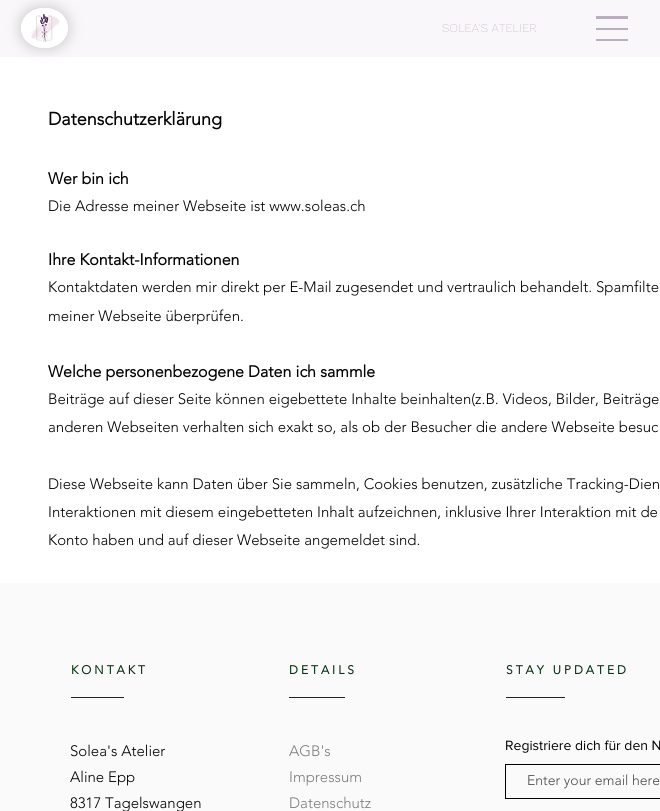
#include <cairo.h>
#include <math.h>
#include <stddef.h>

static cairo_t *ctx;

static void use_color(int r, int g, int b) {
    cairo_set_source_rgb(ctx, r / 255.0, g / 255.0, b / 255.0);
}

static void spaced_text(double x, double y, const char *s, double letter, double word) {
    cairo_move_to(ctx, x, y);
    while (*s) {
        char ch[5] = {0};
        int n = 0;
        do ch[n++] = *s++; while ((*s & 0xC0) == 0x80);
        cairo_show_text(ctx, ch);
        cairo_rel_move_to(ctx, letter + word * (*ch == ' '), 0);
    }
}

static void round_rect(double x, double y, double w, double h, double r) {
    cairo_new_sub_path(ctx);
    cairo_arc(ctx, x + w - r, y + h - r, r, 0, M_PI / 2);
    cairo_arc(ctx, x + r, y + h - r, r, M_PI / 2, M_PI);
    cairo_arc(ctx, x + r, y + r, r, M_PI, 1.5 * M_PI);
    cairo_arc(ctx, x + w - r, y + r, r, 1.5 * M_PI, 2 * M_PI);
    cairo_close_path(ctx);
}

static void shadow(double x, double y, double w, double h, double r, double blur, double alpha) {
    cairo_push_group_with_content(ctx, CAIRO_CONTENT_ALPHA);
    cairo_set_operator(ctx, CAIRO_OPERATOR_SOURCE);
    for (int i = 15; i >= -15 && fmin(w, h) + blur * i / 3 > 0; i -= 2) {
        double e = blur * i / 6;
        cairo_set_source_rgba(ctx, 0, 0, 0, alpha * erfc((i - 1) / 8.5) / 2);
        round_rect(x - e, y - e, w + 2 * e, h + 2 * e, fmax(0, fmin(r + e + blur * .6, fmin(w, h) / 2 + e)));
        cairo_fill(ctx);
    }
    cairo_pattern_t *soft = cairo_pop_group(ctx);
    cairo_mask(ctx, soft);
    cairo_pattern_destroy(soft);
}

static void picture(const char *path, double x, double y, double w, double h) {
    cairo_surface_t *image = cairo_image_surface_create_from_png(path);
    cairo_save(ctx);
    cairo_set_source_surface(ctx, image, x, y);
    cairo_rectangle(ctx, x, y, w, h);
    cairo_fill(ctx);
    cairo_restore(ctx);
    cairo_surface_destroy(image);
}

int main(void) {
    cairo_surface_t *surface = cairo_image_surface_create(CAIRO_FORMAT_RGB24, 660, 811);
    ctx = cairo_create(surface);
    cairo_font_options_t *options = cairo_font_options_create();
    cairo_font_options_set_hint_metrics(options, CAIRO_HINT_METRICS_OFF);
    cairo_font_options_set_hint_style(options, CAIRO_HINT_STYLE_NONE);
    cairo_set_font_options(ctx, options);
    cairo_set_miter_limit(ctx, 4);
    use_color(255, 255, 255);
    cairo_paint(ctx);
    use_color(249, 247, 249);
    cairo_rectangle(ctx, 0, 0, 660, 57);
    cairo_fill(ctx);
    use_color(0, 0, 0);
    shadow(21, 8, 47, 40, 20, 7, 0.2);
    use_color(255, 255, 255);
    cairo_new_path(ctx);
    cairo_move_to(ctx, 44.5, 8);
    cairo_curve_to(ctx, 57.5, 8, 68, 17, 68, 28);
    cairo_curve_to(ctx, 68, 39, 57.5, 48, 44.5, 48);
    cairo_curve_to(ctx, 31.5, 48, 21, 39, 21, 28);
    cairo_curve_to(ctx, 21, 17, 31.5, 8, 44.5, 8);
    cairo_close_path(ctx);
    cairo_fill(ctx);
    cairo_new_path(ctx);
    cairo_move_to(ctx, 44.5, 11);
    cairo_curve_to(ctx, 71.5, 11, 71.5, 45, 44.5, 45);
    cairo_curve_to(ctx, 17.5, 45, 17.5, 11, 44.5, 11);
    cairo_close_path(ctx);
    cairo_set_line_width(ctx, 6);
    cairo_stroke(ctx);
    picture("img1.png", 31, 14, 29, 28);
    cairo_select_font_face(ctx, "Work Sans ExtraLight", CAIRO_FONT_SLANT_NORMAL, CAIRO_FONT_WEIGHT_NORMAL);
    cairo_set_font_size(ctx, 12);
    use_color(185, 174, 189);
    cairo_move_to(ctx, 442, 32);
    cairo_show_text(ctx, "SOLEA'S ATELIER");
    cairo_rectangle(ctx, 596, 16, 32, 3);
    cairo_fill(ctx);
    cairo_rectangle(ctx, 596, 28, 32, 2);
    cairo_fill(ctx);
    cairo_rectangle(ctx, 596, 39, 32, 2);
    cairo_fill(ctx);
    cairo_select_font_face(ctx, "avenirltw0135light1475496", CAIRO_FONT_SLANT_NORMAL, CAIRO_FONT_WEIGHT_BOLD);
    cairo_set_font_size(ctx, 18);
    use_color(0, 0, 0);
    cairo_move_to(ctx, 48, 125);
    cairo_show_text(ctx, "Datenschutzerklärung");
    cairo_set_font_size(ctx, 16);
    cairo_move_to(ctx, 48, 184);
    cairo_show_text(ctx, "Wer bin ich");
    cairo_select_font_face(ctx, "avenirltw0135light1475496 Light", CAIRO_FONT_SLANT_NORMAL, CAIRO_FONT_WEIGHT_NORMAL);
    cairo_set_font_size(ctx, 15);
    cairo_move_to(ctx, 48, 211);
    cairo_show_text(ctx, "Die Adresse meiner Webseite ist www.soleas.ch");
    cairo_select_font_face(ctx, "avenirltw0135light1475496", CAIRO_FONT_SLANT_NORMAL, CAIRO_FONT_WEIGHT_BOLD);
    cairo_set_font_size(ctx, 16);
    cairo_move_to(ctx, 48, 265);
    cairo_show_text(ctx, "Ihre Kontakt-Informationen");
    cairo_select_font_face(ctx, "avenirltw0135light1475496 Light", CAIRO_FONT_SLANT_NORMAL, CAIRO_FONT_WEIGHT_NORMAL);
    cairo_set_font_size(ctx, 15);
    cairo_move_to(ctx, 48, 292);
    cairo_show_text(ctx, "Kontaktdaten werden mir direkt per E-Mail zugesendet und vertraulich behandelt. Spamfilte");
    cairo_move_to(ctx, 48, 321);
    cairo_show_text(ctx, "meiner Webseite überprüfen.");
    cairo_select_font_face(ctx, "avenirltw0135light1475496", CAIRO_FONT_SLANT_NORMAL, CAIRO_FONT_WEIGHT_BOLD);
    cairo_set_font_size(ctx, 16);
    cairo_move_to(ctx, 48, 377);
    cairo_show_text(ctx, "Welche personenbezogene Daten ich sammle");
    cairo_select_font_face(ctx, "avenirltw0135light1475496 Light", CAIRO_FONT_SLANT_NORMAL, CAIRO_FONT_WEIGHT_NORMAL);
    cairo_set_font_size(ctx, 15);
    cairo_move_to(ctx, 48, 404);
    cairo_show_text(ctx, "Beiträge auf dieser Seite können eigebettete Inhalte beinhalten(z.B. Videos, Bilder, Beiträge");
    cairo_move_to(ctx, 48, 432);
    cairo_show_text(ctx, "anderen Webseiten verhalten sich exakt so, als ob der Besucher die andere Webseite besuc");
    cairo_move_to(ctx, 48, 489);
    cairo_show_text(ctx, "Diese Webseite kann Daten über Sie sammeln, Cookies benutzen, zusätzliche Tracking-Dien");
    cairo_move_to(ctx, 48, 517);
    cairo_show_text(ctx, "Interaktionen mit diesem eingebetteten Inhalt aufzeichnen, inklusive Ihrer Interaktion mit de");
    cairo_move_to(ctx, 48, 545);
    cairo_show_text(ctx, "Konto haben und auf dieser Webseite angemeldet sind.");
    use_color(250, 250, 250);
    cairo_rectangle(ctx, 0, 583, 660, 228);
    cairo_fill(ctx);
    cairo_select_font_face(ctx, "avenirltw0135light1475496", CAIRO_FONT_SLANT_NORMAL, CAIRO_FONT_WEIGHT_BOLD);
    cairo_set_font_size(ctx, 12);
    use_color(6, 51, 17);
    spaced_text(71, 674, "KONTAKT", 3, 0);
    spaced_text(289, 674, "DETAILS", 3, 0);
    spaced_text(506, 674, "STAY UPDATED", 3, 0);
    cairo_rectangle(ctx, 71, 697, 53, 1);
    cairo_fill(ctx);
    cairo_rectangle(ctx, 289, 697, 56, 1);
    cairo_fill(ctx);
    cairo_rectangle(ctx, 506, 697, 59, 1);
    cairo_fill(ctx);
    cairo_select_font_face(ctx, "avenirltw0135light1475496 Light", CAIRO_FONT_SLANT_NORMAL, CAIRO_FONT_WEIGHT_NORMAL);
    cairo_set_font_size(ctx, 15);
    use_color(0, 0, 0);
    cairo_move_to(ctx, 70, 756);
    cairo_show_text(ctx, "Solea's Atelier");
    cairo_move_to(ctx, 70, 782);
    cairo_show_text(ctx, "Aline Epp");
    cairo_move_to(ctx, 70, 808);
    cairo_show_text(ctx, "8317 Tagelswangen");
    use_color(125, 125, 125);
    cairo_move_to(ctx, 289, 756);
    cairo_show_text(ctx, "AGB's");
    cairo_move_to(ctx, 289, 782);
    cairo_show_text(ctx, "Impressum");
    cairo_move_to(ctx, 289, 808);
    cairo_show_text(ctx, "Datenschutz");
    cairo_select_font_face(ctx, "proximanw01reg", CAIRO_FONT_SLANT_NORMAL, CAIRO_FONT_WEIGHT_NORMAL);
    cairo_set_font_size(ctx, 14);
    use_color(0, 0, 0);
    cairo_move_to(ctx, 505, 750);
    cairo_show_text(ctx, "Registriere dich für den N");
    cairo_rectangle(ctx, 505.5, 764.5, 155, 34);
    cairo_set_line_width(ctx, 1);
    cairo_stroke(ctx);
    cairo_select_font_face(ctx, "avenirltw0135light1475496 Light", CAIRO_FONT_SLANT_NORMAL, CAIRO_FONT_WEIGHT_NORMAL);
    use_color(74, 72, 72);
    cairo_move_to(ctx, 527, 785);
    cairo_show_text(ctx, "Enter your email here");
    cairo_surface_write_to_png(surface, "result.png");
    cairo_font_options_destroy(options);
    cairo_destroy(ctx);
    cairo_surface_destroy(surface);
    return 0;
}
